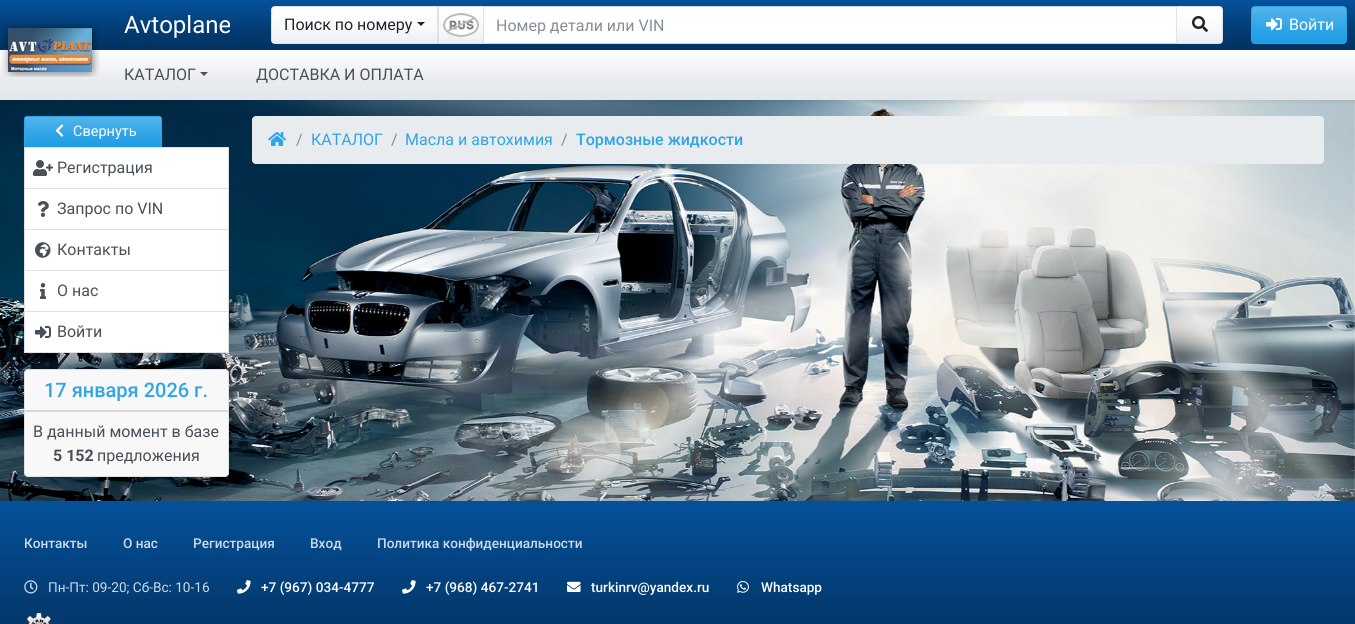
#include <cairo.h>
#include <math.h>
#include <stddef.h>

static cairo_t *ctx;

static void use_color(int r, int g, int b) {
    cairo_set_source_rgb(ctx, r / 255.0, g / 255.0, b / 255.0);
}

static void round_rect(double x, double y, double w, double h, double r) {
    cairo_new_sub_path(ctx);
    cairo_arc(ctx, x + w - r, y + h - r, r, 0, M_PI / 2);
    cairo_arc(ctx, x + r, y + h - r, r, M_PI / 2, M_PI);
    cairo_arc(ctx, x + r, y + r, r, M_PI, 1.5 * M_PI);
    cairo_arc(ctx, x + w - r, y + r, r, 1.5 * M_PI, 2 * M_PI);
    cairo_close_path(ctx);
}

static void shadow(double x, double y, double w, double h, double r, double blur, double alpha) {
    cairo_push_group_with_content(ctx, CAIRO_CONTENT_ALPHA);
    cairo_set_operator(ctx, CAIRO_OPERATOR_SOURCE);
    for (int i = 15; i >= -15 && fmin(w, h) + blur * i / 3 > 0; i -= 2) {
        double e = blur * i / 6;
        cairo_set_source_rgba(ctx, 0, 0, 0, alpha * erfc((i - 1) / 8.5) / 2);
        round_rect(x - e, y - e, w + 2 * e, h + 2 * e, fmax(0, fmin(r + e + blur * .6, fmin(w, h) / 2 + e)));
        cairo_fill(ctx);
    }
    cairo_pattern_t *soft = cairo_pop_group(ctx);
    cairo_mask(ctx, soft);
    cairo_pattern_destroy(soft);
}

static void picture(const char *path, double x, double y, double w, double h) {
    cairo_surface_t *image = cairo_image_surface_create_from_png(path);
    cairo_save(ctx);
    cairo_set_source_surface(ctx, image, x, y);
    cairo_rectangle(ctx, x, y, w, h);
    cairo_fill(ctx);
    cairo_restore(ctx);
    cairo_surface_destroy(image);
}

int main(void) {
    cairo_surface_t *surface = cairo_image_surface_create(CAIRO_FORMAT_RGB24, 1355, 624);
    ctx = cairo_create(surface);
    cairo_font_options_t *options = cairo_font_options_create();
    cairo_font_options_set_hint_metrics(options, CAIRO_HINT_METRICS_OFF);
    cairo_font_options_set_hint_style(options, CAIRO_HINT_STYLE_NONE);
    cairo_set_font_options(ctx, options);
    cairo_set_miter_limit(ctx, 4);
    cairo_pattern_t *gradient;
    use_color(255, 255, 255);
    cairo_paint(ctx);
    picture("img5.png", 0, 100, 1355, 401);
    use_color(0, 0, 0);
    shadow(0, 52, 1355, 50, 0, 2, 0.07);
    gradient = cairo_pattern_create_linear(678, 0, 678, 50);
    cairo_pattern_add_color_stop_rgba(gradient, 0, 0.016, 0.318, 0.608, 1);
    cairo_pattern_add_color_stop_rgba(gradient, 0.6, 0.012, 0.235, 0.451, 1);
    cairo_pattern_add_color_stop_rgba(gradient, 1, 0.008, 0.196, 0.373, 1);
    cairo_set_source(ctx, gradient);
    cairo_pattern_destroy(gradient);
    cairo_rectangle(ctx, 0, 0, 1355, 50);
    cairo_fill(ctx);
    gradient = cairo_pattern_create_linear(678, 50, 678, 100);
    cairo_pattern_add_color_stop_rgba(gradient, 0, 1, 1, 1, 1);
    cairo_pattern_add_color_stop_rgba(gradient, 0.6, 0.914, 0.925, 0.937, 1);
    cairo_pattern_add_color_stop_rgba(gradient, 1, 0.89, 0.906, 0.922, 1);
    cairo_set_source(ctx, gradient);
    cairo_pattern_destroy(gradient);
    cairo_rectangle(ctx, 0, 50, 1355, 50);
    cairo_fill(ctx);
    picture("img1.png", 2, 24, 98, 53);
    cairo_select_font_face(ctx, "Roboto", CAIRO_FONT_SLANT_NORMAL, CAIRO_FONT_WEIGHT_NORMAL);
    cairo_set_font_size(ctx, 24);
    use_color(255, 255, 255);
    cairo_move_to(ctx, 124, 33);
    cairo_show_text(ctx, "Avtoplane");
    gradient = cairo_pattern_create_linear(355, 7, 355, 43);
    cairo_pattern_add_color_stop_rgba(gradient, 0, 1, 1, 1, 1);
    cairo_pattern_add_color_stop_rgba(gradient, 0.6, 0.973, 0.976, 0.98, 1);
    cairo_pattern_add_color_stop_rgba(gradient, 1, 0.925, 0.937, 0.949, 1);
    cairo_set_source(ctx, gradient);
    cairo_pattern_destroy(gradient);
    cairo_rectangle(ctx, 272, 7, 165, 36);
    cairo_fill(ctx);
    cairo_new_path(ctx);
    cairo_move_to(ctx, 275, 6.5);
    cairo_line_to(ctx, 437.5, 6.5);
    cairo_line_to(ctx, 437.5, 43.5);
    cairo_line_to(ctx, 275, 43.5);
    cairo_curve_to(ctx, 273, 43.5, 271.5, 42, 271.5, 40);
    cairo_line_to(ctx, 271.5, 10);
    cairo_curve_to(ctx, 271.5, 8, 273, 6.5, 275, 6.5);
    cairo_close_path(ctx);
    use_color(222, 226, 230);
    cairo_set_line_width(ctx, 1);
    cairo_stroke(ctx);
    cairo_set_font_size(ctx, 16);
    use_color(33, 37, 41);
    cairo_move_to(ctx, 284, 30);
    cairo_show_text(ctx, "Поиск по номеру");
    cairo_new_path(ctx);
    cairo_move_to(ctx, 417, 22);
    cairo_line_to(ctx, 425, 22);
    cairo_line_to(ctx, 421, 26);
    cairo_close_path(ctx);
    cairo_fill(ctx);
    gradient = cairo_pattern_create_linear(461, 7, 461, 43);
    cairo_pattern_add_color_stop_rgba(gradient, 0, 1, 1, 1, 1);
    cairo_pattern_add_color_stop_rgba(gradient, 0.6, 0.973, 0.976, 0.98, 1);
    cairo_pattern_add_color_stop_rgba(gradient, 1, 0.925, 0.937, 0.949, 1);
    cairo_set_source(ctx, gradient);
    cairo_pattern_destroy(gradient);
    cairo_rectangle(ctx, 439, 7, 44, 36);
    cairo_fill(ctx);
    use_color(255, 255, 255);
    cairo_rectangle(ctx, 483.5, 6.5, 693, 37);
    cairo_fill_preserve(ctx);
    use_color(206, 212, 218);
    cairo_stroke(ctx);
    cairo_rectangle(ctx, 438.5, 6.5, 45, 37);
    use_color(222, 226, 230);
    cairo_stroke(ctx);
    picture("img2.png", 443, 13, 36, 24);
    use_color(134, 142, 150);
    cairo_move_to(ctx, 496, 31);
    cairo_show_text(ctx, "Номер детали или VIN");
    gradient = cairo_pattern_create_linear(1200, 7, 1200, 43);
    cairo_pattern_add_color_stop_rgba(gradient, 0, 1, 1, 1, 1);
    cairo_pattern_add_color_stop_rgba(gradient, 0.6, 0.973, 0.976, 0.98, 1);
    cairo_pattern_add_color_stop_rgba(gradient, 1, 0.925, 0.937, 0.949, 1);
    cairo_set_source(ctx, gradient);
    cairo_pattern_destroy(gradient);
    cairo_rectangle(ctx, 1177, 7, 45, 36);
    cairo_fill(ctx);
    cairo_new_path(ctx);
    cairo_move_to(ctx, 1176.5, 6.5);
    cairo_line_to(ctx, 1219, 6.5);
    cairo_curve_to(ctx, 1221, 6.5, 1222.5, 8, 1222.5, 10);
    cairo_line_to(ctx, 1222.5, 40);
    cairo_curve_to(ctx, 1222.5, 42, 1221, 43.5, 1219, 43.5);
    cairo_line_to(ctx, 1176.5, 43.5);
    cairo_close_path(ctx);
    use_color(222, 226, 230);
    cairo_stroke(ctx);
    picture("img3.png", 1192, 16, 16, 16);
    cairo_save(ctx);
    round_rect(1251, 6, 96, 38, 4);
    cairo_clip(ctx);
    gradient = cairo_pattern_create_linear(1299, 7, 1299, 43);
    cairo_pattern_add_color_stop_rgba(gradient, 0, 0.329, 0.706, 0.922, 1);
    cairo_pattern_add_color_stop_rgba(gradient, 0.6, 0.184, 0.643, 0.906, 1);
    cairo_pattern_add_color_stop_rgba(gradient, 1, 0.114, 0.612, 0.898, 1);
    cairo_set_source(ctx, gradient);
    cairo_pattern_destroy(gradient);
    cairo_rectangle(ctx, 1252, 7, 94, 36);
    cairo_fill(ctx);
    cairo_restore(ctx);
    round_rect(1251.5, 6.5, 95, 37, 3.5);
    use_color(47, 164, 231);
    cairo_stroke(ctx);
    picture("img4.png", 1266, 18, 16, 13);
    use_color(255, 255, 255);
    cairo_move_to(ctx, 1289, 30);
    cairo_show_text(ctx, "Войти");
    use_color(73, 80, 87);
    cairo_move_to(ctx, 124, 80);
    cairo_show_text(ctx, "КАТАЛОГ");
    cairo_new_path(ctx);
    cairo_move_to(ctx, 200, 72);
    cairo_line_to(ctx, 208, 72);
    cairo_line_to(ctx, 204, 76);
    cairo_close_path(ctx);
    cairo_fill(ctx);
    cairo_move_to(ctx, 256, 80);
    cairo_show_text(ctx, "ДОСТАВКА И ОПЛАТА");
    gradient = cairo_pattern_create_linear(93, 117, 93, 147);
    cairo_pattern_add_color_stop_rgba(gradient, 0, 0.329, 0.706, 0.922, 1);
    cairo_pattern_add_color_stop_rgba(gradient, 0.6, 0.184, 0.643, 0.906, 1);
    cairo_pattern_add_color_stop_rgba(gradient, 1, 0.114, 0.612, 0.898, 1);
    cairo_set_source(ctx, gradient);
    cairo_pattern_destroy(gradient);
    cairo_rectangle(ctx, 25, 117, 136, 30);
    cairo_fill(ctx);
    cairo_new_path(ctx);
    cairo_move_to(ctx, 27, 116.5);
    cairo_line_to(ctx, 159, 116.5);
    cairo_curve_to(ctx, 160.5, 116.5, 161.5, 117.5, 161.5, 119);
    cairo_line_to(ctx, 161.5, 147.5);
    cairo_line_to(ctx, 24.5, 147.5);
    cairo_line_to(ctx, 24.5, 119);
    cairo_curve_to(ctx, 24.5, 117.5, 25.5, 116.5, 27, 116.5);
    cairo_close_path(ctx);
    use_color(47, 164, 231);
    cairo_stroke(ctx);
    picture("img6.png", 55, 124, 9, 13);
    cairo_set_font_size(ctx, 14.5);
    use_color(255, 255, 255);
    cairo_move_to(ctx, 73, 136);
    cairo_show_text(ctx, "Свернуть");
    cairo_rectangle(ctx, 24.5, 147.5, 204, 41);
    cairo_fill_preserve(ctx);
    use_color(223, 223, 223);
    cairo_stroke(ctx);
    picture("img7.png", 33, 160, 20, 16);
    cairo_set_font_size(ctx, 16);
    use_color(73, 80, 87);
    cairo_move_to(ctx, 57, 173);
    cairo_show_text(ctx, "Регистрация");
    use_color(255, 255, 255);
    cairo_rectangle(ctx, 24, 189, 205, 164);
    cairo_fill(ctx);
    use_color(223, 223, 223);
    cairo_new_path(ctx);
    cairo_move_to(ctx, 229, 189);
    cairo_line_to(ctx, 229, 230);
    cairo_line_to(ctx, 228, 229);
    cairo_line_to(ctx, 228, 189);
    cairo_close_path(ctx);
    cairo_fill(ctx);
    cairo_set_source_rgba(ctx, 0, 0, 0, 0.12);
    cairo_new_path(ctx);
    cairo_move_to(ctx, 229, 230);
    cairo_line_to(ctx, 24, 230);
    cairo_line_to(ctx, 25, 229);
    cairo_line_to(ctx, 228, 229);
    cairo_close_path(ctx);
    cairo_fill(ctx);
    cairo_new_path(ctx);
    cairo_move_to(ctx, 24, 230);
    cairo_line_to(ctx, 24, 189);
    cairo_line_to(ctx, 25, 189);
    cairo_line_to(ctx, 25, 229);
    cairo_close_path(ctx);
    cairo_fill(ctx);
    picture("img8.png", 37, 201, 12, 16);
    use_color(73, 80, 87);
    cairo_move_to(ctx, 57, 214);
    cairo_show_text(ctx, "Запрос по VIN");
    use_color(223, 223, 223);
    cairo_new_path(ctx);
    cairo_move_to(ctx, 229, 230);
    cairo_line_to(ctx, 229, 271);
    cairo_line_to(ctx, 228, 270);
    cairo_line_to(ctx, 228, 230);
    cairo_close_path(ctx);
    cairo_fill(ctx);
    cairo_set_source_rgba(ctx, 0, 0, 0, 0.12);
    cairo_new_path(ctx);
    cairo_move_to(ctx, 229, 271);
    cairo_line_to(ctx, 24, 271);
    cairo_line_to(ctx, 25, 270);
    cairo_line_to(ctx, 228, 270);
    cairo_close_path(ctx);
    cairo_fill(ctx);
    cairo_new_path(ctx);
    cairo_move_to(ctx, 24, 271);
    cairo_line_to(ctx, 24, 230);
    cairo_line_to(ctx, 25, 230);
    cairo_line_to(ctx, 25, 270);
    cairo_close_path(ctx);
    cairo_fill(ctx);
    picture("img9.png", 35, 242, 16, 16);
    use_color(73, 80, 87);
    cairo_move_to(ctx, 57, 255);
    cairo_show_text(ctx, "Контакты");
    use_color(223, 223, 223);
    cairo_new_path(ctx);
    cairo_move_to(ctx, 229, 271);
    cairo_line_to(ctx, 229, 312);
    cairo_line_to(ctx, 228, 311);
    cairo_line_to(ctx, 228, 271);
    cairo_close_path(ctx);
    cairo_fill(ctx);
    cairo_set_source_rgba(ctx, 0, 0, 0, 0.12);
    cairo_new_path(ctx);
    cairo_move_to(ctx, 229, 312);
    cairo_line_to(ctx, 24, 312);
    cairo_line_to(ctx, 25, 311);
    cairo_line_to(ctx, 228, 311);
    cairo_close_path(ctx);
    cairo_fill(ctx);
    cairo_new_path(ctx);
    cairo_move_to(ctx, 24, 312);
    cairo_line_to(ctx, 24, 271);
    cairo_line_to(ctx, 25, 271);
    cairo_line_to(ctx, 25, 311);
    cairo_close_path(ctx);
    cairo_fill(ctx);
    picture("img10.png", 40, 283, 6, 16);
    use_color(73, 80, 87);
    cairo_move_to(ctx, 57, 296);
    cairo_show_text(ctx, "О нас");
    use_color(223, 223, 223);
    cairo_new_path(ctx);
    cairo_move_to(ctx, 229, 312);
    cairo_line_to(ctx, 229, 353);
    cairo_line_to(ctx, 228, 352);
    cairo_line_to(ctx, 228, 312);
    cairo_close_path(ctx);
    cairo_fill(ctx);
    cairo_set_source_rgba(ctx, 0, 0, 0, 0.12);
    cairo_new_path(ctx);
    cairo_move_to(ctx, 229, 353);
    cairo_line_to(ctx, 24, 353);
    cairo_line_to(ctx, 25, 352);
    cairo_line_to(ctx, 228, 352);
    cairo_close_path(ctx);
    cairo_fill(ctx);
    cairo_new_path(ctx);
    cairo_move_to(ctx, 24, 353);
    cairo_line_to(ctx, 24, 312);
    cairo_line_to(ctx, 25, 312);
    cairo_line_to(ctx, 25, 352);
    cairo_close_path(ctx);
    cairo_fill(ctx);
    picture("img11.png", 35, 326, 16, 13);
    use_color(73, 80, 87);
    cairo_move_to(ctx, 57, 337);
    cairo_show_text(ctx, "Войти");
    use_color(255, 255, 255);
    round_rect(24, 369, 205, 108, 4);
    cairo_fill(ctx);
    round_rect(24.5, 369.5, 204, 107, 3.5);
    cairo_set_source_rgba(ctx, 0, 0, 0, 0.12);
    cairo_stroke(ctx);
    cairo_set_source_rgba(ctx, 0, 0, 0, 0.03);
    cairo_rectangle(ctx, 25, 370, 203, 40);
    cairo_fill(ctx);
    use_color(216, 216, 216);
    cairo_rectangle(ctx, 25, 410, 203, 2);
    cairo_fill(ctx);
    cairo_select_font_face(ctx, "Roboto Medium", CAIRO_FONT_SLANT_NORMAL, CAIRO_FONT_WEIGHT_NORMAL);
    cairo_set_font_size(ctx, 20);
    use_color(47, 164, 231);
    cairo_move_to(ctx, 44, 397);
    cairo_show_text(ctx, "17 января 2026 г.");
    cairo_set_source_rgba(ctx, 0, 0, 0, 0.03);
    cairo_rectangle(ctx, 25, 412, 203, 64);
    cairo_fill(ctx);
    cairo_select_font_face(ctx, "Roboto", CAIRO_FONT_SLANT_NORMAL, CAIRO_FONT_WEIGHT_NORMAL);
    cairo_set_font_size(ctx, 16);
    use_color(73, 80, 87);
    cairo_move_to(ctx, 33, 437);
    cairo_show_text(ctx, "В данный момент в базе");
    cairo_select_font_face(ctx, "Roboto", CAIRO_FONT_SLANT_NORMAL, CAIRO_FONT_WEIGHT_BOLD);
    cairo_move_to(ctx, 53, 461);
    cairo_show_text(ctx, "5 152");
    cairo_select_font_face(ctx, "Roboto", CAIRO_FONT_SLANT_NORMAL, CAIRO_FONT_WEIGHT_NORMAL);
    cairo_move_to(ctx, 97, 461);
    cairo_show_text(ctx, "предложения");
    use_color(233, 236, 239);
    round_rect(252, 116, 1072, 48, 4);
    cairo_fill(ctx);
    picture("img12.png", 268, 132, 18, 14);
    use_color(134, 142, 150);
    cairo_move_to(ctx, 296, 145);
    cairo_show_text(ctx, "/");
    use_color(47, 164, 231);
    cairo_move_to(ctx, 311, 145);
    cairo_show_text(ctx, "КАТАЛОГ");
    use_color(134, 142, 150);
    cairo_move_to(ctx, 391, 145);
    cairo_show_text(ctx, "/");
    use_color(47, 164, 231);
    cairo_move_to(ctx, 405, 145);
    cairo_show_text(ctx, "Масла и автохимия");
    use_color(134, 142, 150);
    cairo_move_to(ctx, 561, 145);
    cairo_show_text(ctx, "/");
    cairo_select_font_face(ctx, "Roboto Medium", CAIRO_FONT_SLANT_NORMAL, CAIRO_FONT_WEIGHT_NORMAL);
    use_color(47, 164, 231);
    cairo_move_to(ctx, 576, 145);
    cairo_show_text(ctx, "Тормозные жидкости");
    gradient = cairo_pattern_create_linear(678, 501, 678, 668);
    cairo_pattern_add_color_stop_rgba(gradient, 0, 0.016, 0.318, 0.608, 1);
    cairo_pattern_add_color_stop_rgba(gradient, 0.6, 0.012, 0.235, 0.451, 1);
    cairo_pattern_add_color_stop_rgba(gradient, 1, 0.008, 0.196, 0.373, 1);
    cairo_set_source(ctx, gradient);
    cairo_pattern_destroy(gradient);
    cairo_rectangle(ctx, 0, 501, 1355, 123);
    cairo_fill(ctx);
    cairo_set_font_size(ctx, 13.6);
    use_color(205, 218, 232);
    cairo_move_to(ctx, 24, 548);
    cairo_show_text(ctx, "Контакты");
    cairo_move_to(ctx, 123, 548);
    cairo_show_text(ctx, "О нас");
    cairo_move_to(ctx, 193, 548);
    cairo_show_text(ctx, "Регистрация");
    cairo_move_to(ctx, 310, 548);
    cairo_show_text(ctx, "Вход");
    cairo_move_to(ctx, 377, 548);
    cairo_show_text(ctx, "Политика конфиденциальности");
    picture("img13.png", 24, 580, 14, 14);
    cairo_select_font_face(ctx, "Roboto", CAIRO_FONT_SLANT_NORMAL, CAIRO_FONT_WEIGHT_NORMAL);
    cairo_move_to(ctx, 48, 592);
    cairo_show_text(ctx, "Пн-Пт: 09-20; Сб-Вс: 10-16");
    picture("img14.png", 237, 580, 14, 14);
    cairo_select_font_face(ctx, "Roboto Medium", CAIRO_FONT_SLANT_NORMAL, CAIRO_FONT_WEIGHT_NORMAL);
    use_color(255, 255, 255);
    cairo_move_to(ctx, 261, 592);
    cairo_show_text(ctx, "+7 (967) 034-4777");
    picture("img14.png", 402, 580, 14, 14);
    cairo_move_to(ctx, 426, 592);
    cairo_show_text(ctx, "+7 (968) 467-2741");
    picture("img15.png", 567, 581, 14, 11);
    cairo_move_to(ctx, 591, 592);
    cairo_show_text(ctx, "turkinrv@yandex.ru");
    picture("img16.png", 737, 581, 12, 12);
    cairo_move_to(ctx, 761, 592);
    cairo_show_text(ctx, "Whatsapp");
    picture("img17.png", 27, 613, 24, 11);
    cairo_surface_write_to_png(surface, "result.png");
    cairo_font_options_destroy(options);
    cairo_destroy(ctx);
    cairo_surface_destroy(surface);
    return 0;
}
